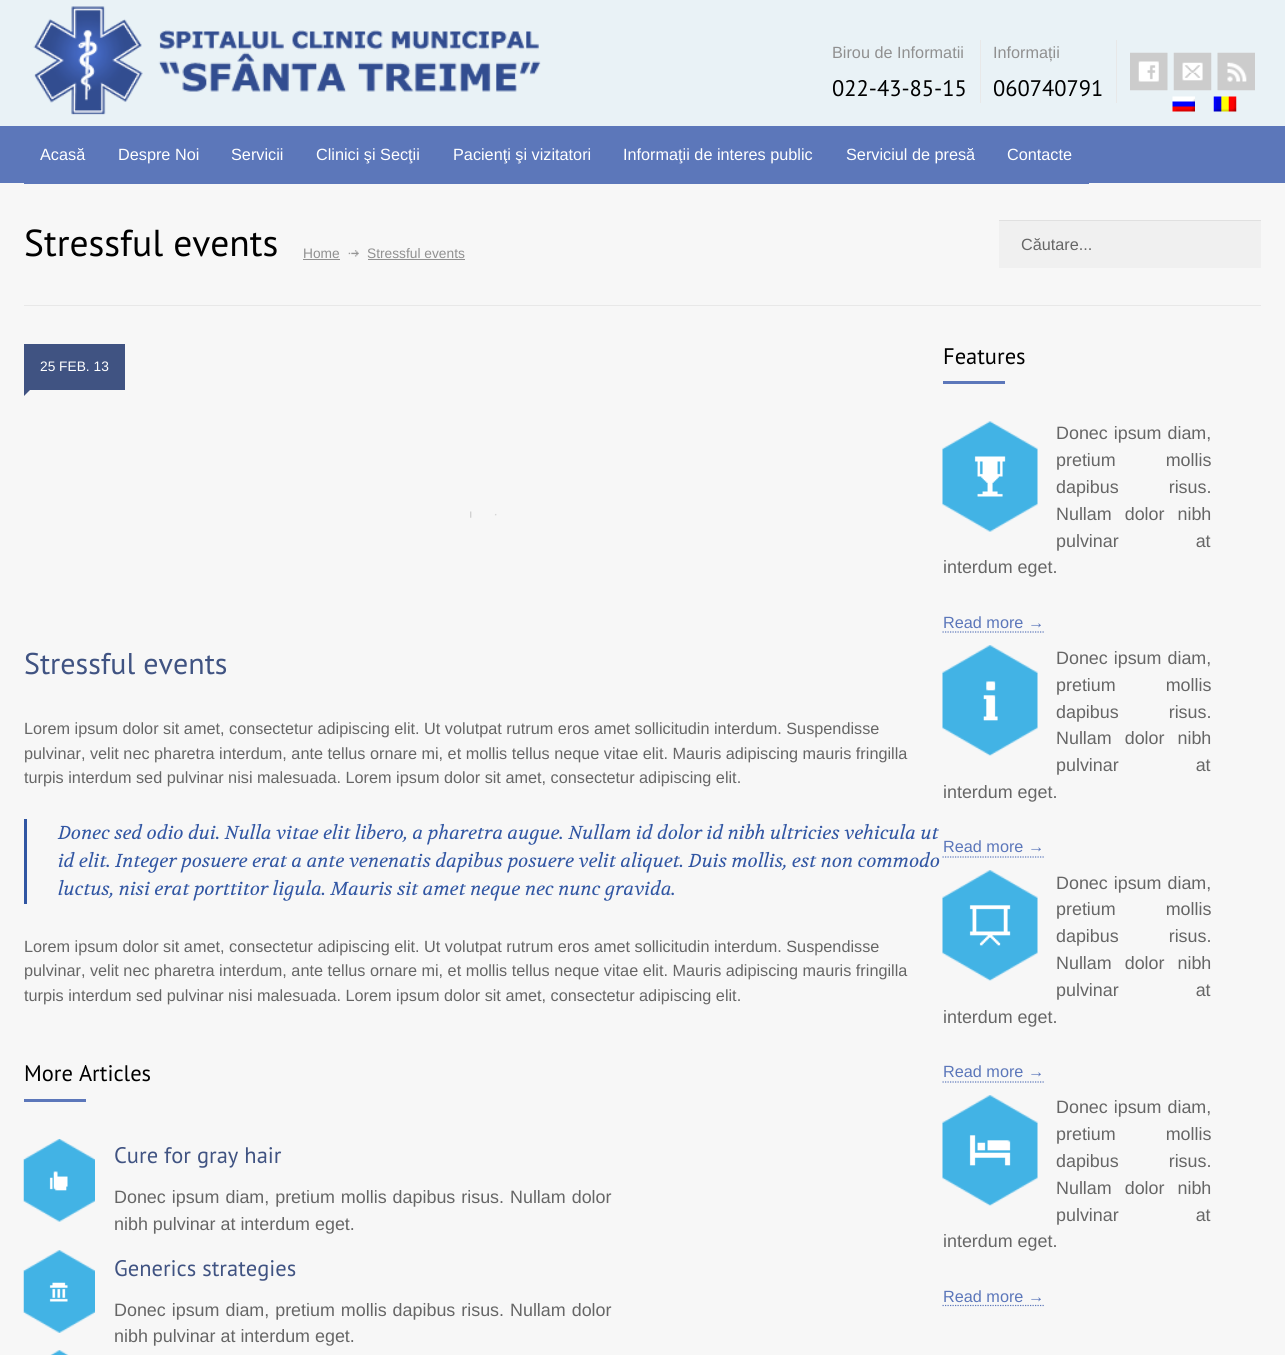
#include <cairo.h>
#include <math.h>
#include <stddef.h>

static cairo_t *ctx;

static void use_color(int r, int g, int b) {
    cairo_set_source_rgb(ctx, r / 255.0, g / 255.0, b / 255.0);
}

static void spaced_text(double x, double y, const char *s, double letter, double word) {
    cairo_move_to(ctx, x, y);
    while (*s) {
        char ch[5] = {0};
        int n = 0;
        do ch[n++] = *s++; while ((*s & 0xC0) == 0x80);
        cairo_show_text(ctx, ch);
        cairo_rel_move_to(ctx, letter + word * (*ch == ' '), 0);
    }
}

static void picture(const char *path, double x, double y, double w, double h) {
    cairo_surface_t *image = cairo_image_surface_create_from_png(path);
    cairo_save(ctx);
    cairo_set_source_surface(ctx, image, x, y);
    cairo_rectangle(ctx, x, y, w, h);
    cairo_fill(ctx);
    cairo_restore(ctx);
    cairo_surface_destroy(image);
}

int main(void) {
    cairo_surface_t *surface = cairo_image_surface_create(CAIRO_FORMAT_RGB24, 1285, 1355);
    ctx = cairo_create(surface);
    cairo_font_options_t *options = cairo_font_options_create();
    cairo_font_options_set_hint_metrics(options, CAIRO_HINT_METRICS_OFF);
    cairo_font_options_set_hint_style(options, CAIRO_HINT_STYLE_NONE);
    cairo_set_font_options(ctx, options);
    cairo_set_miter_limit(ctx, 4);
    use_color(247, 247, 247);
    cairo_paint(ctx);
    use_color(233, 242, 246);
    cairo_rectangle(ctx, 0, 0, 1285, 126);
    cairo_fill(ctx);
    picture("img1.png", 33, 6, 508, 109);
    cairo_select_font_face(ctx, "Liberation Sans", CAIRO_FONT_SLANT_NORMAL, CAIRO_FONT_WEIGHT_NORMAL);
    cairo_set_font_size(ctx, 16.25);
    use_color(144, 144, 144);
    cairo_move_to(ctx, 832, 58);
    cairo_show_text(ctx, "Birou de Informatii");
    cairo_select_font_face(ctx, "PT Sans", CAIRO_FONT_SLANT_NORMAL, CAIRO_FONT_WEIGHT_NORMAL);
    cairo_set_font_size(ctx, 22.5);
    use_color(0, 0, 0);
    cairo_move_to(ctx, 832, 96);
    cairo_show_text(ctx, "022-43-85-15");
    use_color(232, 232, 232);
    cairo_rectangle(ctx, 980, 40, 1, 63);
    cairo_fill(ctx);
    cairo_select_font_face(ctx, "Liberation Sans", CAIRO_FONT_SLANT_NORMAL, CAIRO_FONT_WEIGHT_NORMAL);
    cairo_set_font_size(ctx, 16.25);
    use_color(144, 144, 144);
    cairo_move_to(ctx, 993, 58);
    cairo_show_text(ctx, "Informații");
    cairo_select_font_face(ctx, "PT Sans", CAIRO_FONT_SLANT_NORMAL, CAIRO_FONT_WEIGHT_NORMAL);
    cairo_set_font_size(ctx, 22.5);
    use_color(0, 0, 0);
    cairo_move_to(ctx, 993, 96);
    cairo_show_text(ctx, "060740791");
    use_color(232, 232, 232);
    cairo_rectangle(ctx, 1116, 40, 1, 63);
    cairo_fill(ctx);
    picture("img2.png", 1130, 52, 38, 39);
    picture("img3.png", 1173, 52, 39, 39);
    picture("img4.png", 1217, 52, 38, 39);
    picture("img5.png", 1172, 96, 23, 16);
    picture("img6.png", 1213, 96, 24, 16);
    use_color(92, 119, 186);
    cairo_rectangle(ctx, 0, 126, 1285, 57);
    cairo_fill(ctx);
    cairo_rectangle(ctx, 24, 183, 1065, 1);
    cairo_fill(ctx);
    cairo_select_font_face(ctx, "Liberation Sans", CAIRO_FONT_SLANT_NORMAL, CAIRO_FONT_WEIGHT_NORMAL);
    cairo_set_font_size(ctx, 16.25);
    use_color(255, 255, 255);
    cairo_move_to(ctx, 40, 160);
    cairo_show_text(ctx, "Acasă");
    cairo_move_to(ctx, 118, 160);
    cairo_show_text(ctx, "Despre Noi");
    cairo_move_to(ctx, 231, 160);
    cairo_show_text(ctx, "Servicii");
    cairo_move_to(ctx, 316, 160);
    cairo_show_text(ctx, "Clinici şi Secţii");
    cairo_move_to(ctx, 453, 160);
    cairo_show_text(ctx, "Pacienţi şi vizitatori");
    cairo_move_to(ctx, 623, 160);
    cairo_show_text(ctx, "Informaţii de interes public");
    cairo_move_to(ctx, 846, 160);
    cairo_show_text(ctx, "Serviciul de presă");
    cairo_move_to(ctx, 1007, 160);
    cairo_show_text(ctx, "Contacte");
    use_color(232, 232, 232);
    cairo_rectangle(ctx, 24, 305, 1237, 1);
    cairo_fill(ctx);
    cairo_select_font_face(ctx, "PT Sans", CAIRO_FONT_SLANT_NORMAL, CAIRO_FONT_WEIGHT_NORMAL);
    cairo_set_font_size(ctx, 37.5);
    use_color(0, 0, 0);
    cairo_move_to(ctx, 24, 256);
    cairo_show_text(ctx, "Stressful events");
    cairo_select_font_face(ctx, "Liberation Sans", CAIRO_FONT_SLANT_NORMAL, CAIRO_FONT_WEIGHT_NORMAL);
    cairo_set_font_size(ctx, 13.75);
    use_color(144, 144, 144);
    cairo_move_to(ctx, 303, 258);
    cairo_show_text(ctx, "Home");
    cairo_rectangle(ctx, 303, 259, 37, 1);
    cairo_fill(ctx);
    picture("img7.png", 348, 250, 11, 7);
    cairo_move_to(ctx, 367, 258);
    cairo_show_text(ctx, "Stressful events");
    cairo_rectangle(ctx, 368, 259, 97, 1);
    cairo_fill(ctx);
    use_color(240, 240, 240);
    cairo_rectangle(ctx, 999, 221, 262, 47);
    cairo_fill(ctx);
    use_color(224, 224, 224);
    cairo_rectangle(ctx, 999, 220, 262, 1);
    cairo_fill(ctx);
    cairo_set_font_size(ctx, 16.25);
    use_color(102, 102, 102);
    cairo_move_to(ctx, 1021, 250);
    cairo_show_text(ctx, "Căutare...");
    use_color(64, 83, 130);
    cairo_rectangle(ctx, 24, 344, 101, 46);
    cairo_fill(ctx);
    cairo_set_font_size(ctx, 13.75);
    use_color(255, 255, 255);
    cairo_move_to(ctx, 40, 371);
    cairo_show_text(ctx, "25 FEB. 13");
    use_color(64, 83, 130);
    cairo_new_path(ctx);
    cairo_move_to(ctx, 24, 390);
    cairo_line_to(ctx, 30, 390);
    cairo_line_to(ctx, 24, 396);
    cairo_close_path(ctx);
    cairo_fill(ctx);
    picture("img8.png", 470, 511, 27, 7);
    cairo_select_font_face(ctx, "PT Sans", CAIRO_FONT_SLANT_NORMAL, CAIRO_FONT_WEIGHT_NORMAL);
    cairo_set_font_size(ctx, 30);
    cairo_move_to(ctx, 24, 674);
    cairo_show_text(ctx, "Stressful events");
    cairo_select_font_face(ctx, "Liberation Sans", CAIRO_FONT_SLANT_NORMAL, CAIRO_FONT_WEIGHT_NORMAL);
    cairo_set_font_size(ctx, 16.25);
    use_color(102, 102, 102);
    cairo_move_to(ctx, 24, 734);
    cairo_show_text(ctx, "Lorem ipsum dolor sit amet, consectetur adipiscing elit. Ut volutpat rutrum eros amet sollicitudin interdum. Suspendisse");
    cairo_move_to(ctx, 24, 759);
    cairo_show_text(ctx, "pulvinar, velit nec pharetra interdum, ante tellus ornare mi, et mollis tellus neque vitae elit. Mauris adipiscing mauris fringilla");
    cairo_move_to(ctx, 24, 783);
    cairo_show_text(ctx, "turpis interdum sed pulvinar nisi malesuada. Lorem ipsum dolor sit amet, consectetur adipiscing elit.");
    use_color(49, 86, 163);
    cairo_rectangle(ctx, 24, 819, 3, 85);
    cairo_fill(ctx);
    cairo_select_font_face(ctx, "Volkhov", CAIRO_FONT_SLANT_ITALIC, CAIRO_FONT_WEIGHT_NORMAL);
    cairo_set_font_size(ctx, 18.75);
    cairo_move_to(ctx, 58, 839);
    cairo_show_text(ctx, "Donec sed odio dui. Nulla vitae elit libero, a pharetra augue. Nullam id dolor id nibh ultricies vehicula ut");
    cairo_move_to(ctx, 58, 867);
    cairo_show_text(ctx, "id elit. Integer posuere erat a ante venenatis dapibus posuere velit aliquet. Duis mollis, est non commodo");
    cairo_move_to(ctx, 58, 895);
    cairo_show_text(ctx, "luctus, nisi erat porttitor ligula. Mauris sit amet neque nec nunc gravida.");
    cairo_select_font_face(ctx, "Liberation Sans", CAIRO_FONT_SLANT_NORMAL, CAIRO_FONT_WEIGHT_NORMAL);
    cairo_set_font_size(ctx, 16.25);
    use_color(102, 102, 102);
    cairo_move_to(ctx, 24, 952);
    cairo_show_text(ctx, "Lorem ipsum dolor sit amet, consectetur adipiscing elit. Ut volutpat rutrum eros amet sollicitudin interdum. Suspendisse");
    cairo_move_to(ctx, 24, 976);
    cairo_show_text(ctx, "pulvinar, velit nec pharetra interdum, ante tellus ornare mi, et mollis tellus neque vitae elit. Mauris adipiscing mauris fringilla");
    cairo_move_to(ctx, 24, 1001);
    cairo_show_text(ctx, "turpis interdum sed pulvinar nisi malesuada. Lorem ipsum dolor sit amet, consectetur adipiscing elit.");
    cairo_select_font_face(ctx, "PT Sans", CAIRO_FONT_SLANT_NORMAL, CAIRO_FONT_WEIGHT_NORMAL);
    cairo_set_font_size(ctx, 22.5);
    use_color(0, 0, 0);
    cairo_move_to(ctx, 24, 1081);
    cairo_show_text(ctx, "More Articles");
    use_color(92, 119, 186);
    cairo_rectangle(ctx, 24, 1099, 62, 3);
    cairo_fill(ctx);
    picture("img9.png", 23, 1139, 72, 83);
    use_color(64, 83, 130);
    cairo_move_to(ctx, 114, 1163);
    cairo_show_text(ctx, "Cure for gray hair");
    cairo_select_font_face(ctx, "Liberation Sans", CAIRO_FONT_SLANT_NORMAL, CAIRO_FONT_WEIGHT_NORMAL);
    cairo_set_font_size(ctx, 17.9);
    use_color(102, 102, 102);
    spaced_text(114, 1203, "Donec ipsum diam, pretium mollis dapibus risus. Nullam dolor", 0, 1);
    cairo_move_to(ctx, 114, 1230);
    cairo_show_text(ctx, "nibh pulvinar at interdum eget.");
    picture("img10.png", 23, 1250, 72, 83);
    cairo_select_font_face(ctx, "PT Sans", CAIRO_FONT_SLANT_NORMAL, CAIRO_FONT_WEIGHT_NORMAL);
    cairo_set_font_size(ctx, 22.5);
    use_color(64, 83, 130);
    cairo_move_to(ctx, 114, 1276);
    cairo_show_text(ctx, "Generics strategies");
    cairo_select_font_face(ctx, "Liberation Sans", CAIRO_FONT_SLANT_NORMAL, CAIRO_FONT_WEIGHT_NORMAL);
    cairo_set_font_size(ctx, 17.9);
    use_color(102, 102, 102);
    spaced_text(114, 1316, "Donec ipsum diam, pretium mollis dapibus risus. Nullam dolor", 0, 1);
    cairo_move_to(ctx, 114, 1342);
    cairo_show_text(ctx, "nibh pulvinar at interdum eget.");
    picture("img11.png", 50, 1350, 19, 5);
    cairo_select_font_face(ctx, "PT Sans", CAIRO_FONT_SLANT_NORMAL, CAIRO_FONT_WEIGHT_NORMAL);
    cairo_set_font_size(ctx, 22.5);
    use_color(0, 0, 0);
    cairo_move_to(ctx, 943, 364);
    cairo_show_text(ctx, "Features");
    use_color(92, 119, 186);
    cairo_rectangle(ctx, 943, 381, 62, 3);
    cairo_fill(ctx);
    picture("img12.png", 942, 421, 96, 111);
    cairo_select_font_face(ctx, "Liberation Sans", CAIRO_FONT_SLANT_NORMAL, CAIRO_FONT_WEIGHT_NORMAL);
    cairo_set_font_size(ctx, 17.9);
    use_color(102, 102, 102);
    spaced_text(1056, 439, "Donec ipsum diam,", 0, 1);
    spaced_text(1056, 466, "pretium mollis", 0, 45);
    spaced_text(1056, 493, "dapibus risus.", 0, 45);
    spaced_text(1056, 520, "Nullam dolor nibh", 0, 8);
    spaced_text(1056, 547, "pulvinar at", 0, 72);
    cairo_move_to(ctx, 943, 573);
    cairo_show_text(ctx, "interdum eget.");
    cairo_new_path(ctx);
    cairo_move_to(ctx, 942.5, 632);
    cairo_line_to(ctx, 1044, 632);
    use_color(92, 119, 186);
    cairo_set_line_width(ctx, 1.2);
    cairo_set_dash(ctx, (double[]){1.25, 1.25}, 2, 0);
    cairo_stroke(ctx);
    cairo_set_font_size(ctx, 16.25);
    cairo_move_to(ctx, 943, 628);
    cairo_show_text(ctx, "Read more →");
    picture("img13.png", 942, 645, 96, 111);
    cairo_set_font_size(ctx, 17.9);
    use_color(102, 102, 102);
    spaced_text(1056, 664, "Donec ipsum diam,", 0, 1);
    spaced_text(1056, 691, "pretium mollis", 0, 45);
    spaced_text(1056, 718, "dapibus risus.", 0, 45);
    spaced_text(1056, 744, "Nullam dolor nibh", 0, 8);
    spaced_text(1056, 771, "pulvinar at", 0, 72);
    cairo_move_to(ctx, 943, 798);
    cairo_show_text(ctx, "interdum eget.");
    cairo_new_path(ctx);
    cairo_move_to(ctx, 942.5, 857);
    cairo_line_to(ctx, 1044, 857);
    use_color(92, 119, 186);
    cairo_stroke(ctx);
    cairo_set_font_size(ctx, 16.25);
    cairo_move_to(ctx, 943, 852);
    cairo_show_text(ctx, "Read more →");
    picture("img14.png", 942, 870, 96, 111);
    cairo_set_font_size(ctx, 17.9);
    use_color(102, 102, 102);
    spaced_text(1056, 889, "Donec ipsum diam,", 0, 1);
    spaced_text(1056, 915, "pretium mollis", 0, 45);
    spaced_text(1056, 942, "dapibus risus.", 0, 45);
    spaced_text(1056, 969, "Nullam dolor nibh", 0, 8);
    spaced_text(1056, 996, "pulvinar at", 0, 72);
    cairo_move_to(ctx, 943, 1023);
    cairo_show_text(ctx, "interdum eget.");
    cairo_new_path(ctx);
    cairo_move_to(ctx, 942.5, 1082);
    cairo_line_to(ctx, 1044, 1082);
    use_color(92, 119, 186);
    cairo_stroke(ctx);
    cairo_set_font_size(ctx, 16.25);
    cairo_move_to(ctx, 943, 1077);
    cairo_show_text(ctx, "Read more →");
    picture("img15.png", 942, 1095, 96, 111);
    cairo_set_font_size(ctx, 17.9);
    use_color(102, 102, 102);
    spaced_text(1056, 1113, "Donec ipsum diam,", 0, 1);
    spaced_text(1056, 1140, "pretium mollis", 0, 45);
    spaced_text(1056, 1167, "dapibus risus.", 0, 45);
    spaced_text(1056, 1194, "Nullam dolor nibh", 0, 8);
    spaced_text(1056, 1221, "pulvinar at", 0, 72);
    cairo_move_to(ctx, 943, 1247);
    cairo_show_text(ctx, "interdum eget.");
    cairo_new_path(ctx);
    cairo_move_to(ctx, 942.5, 1305.5);
    cairo_line_to(ctx, 1044, 1305.5);
    use_color(92, 119, 186);
    cairo_stroke(ctx);
    cairo_set_font_size(ctx, 16.25);
    cairo_move_to(ctx, 943, 1302);
    cairo_show_text(ctx, "Read more →");
    cairo_surface_write_to_png(surface, "result.png");
    cairo_font_options_destroy(options);
    cairo_destroy(ctx);
    cairo_surface_destroy(surface);
    return 0;
}
